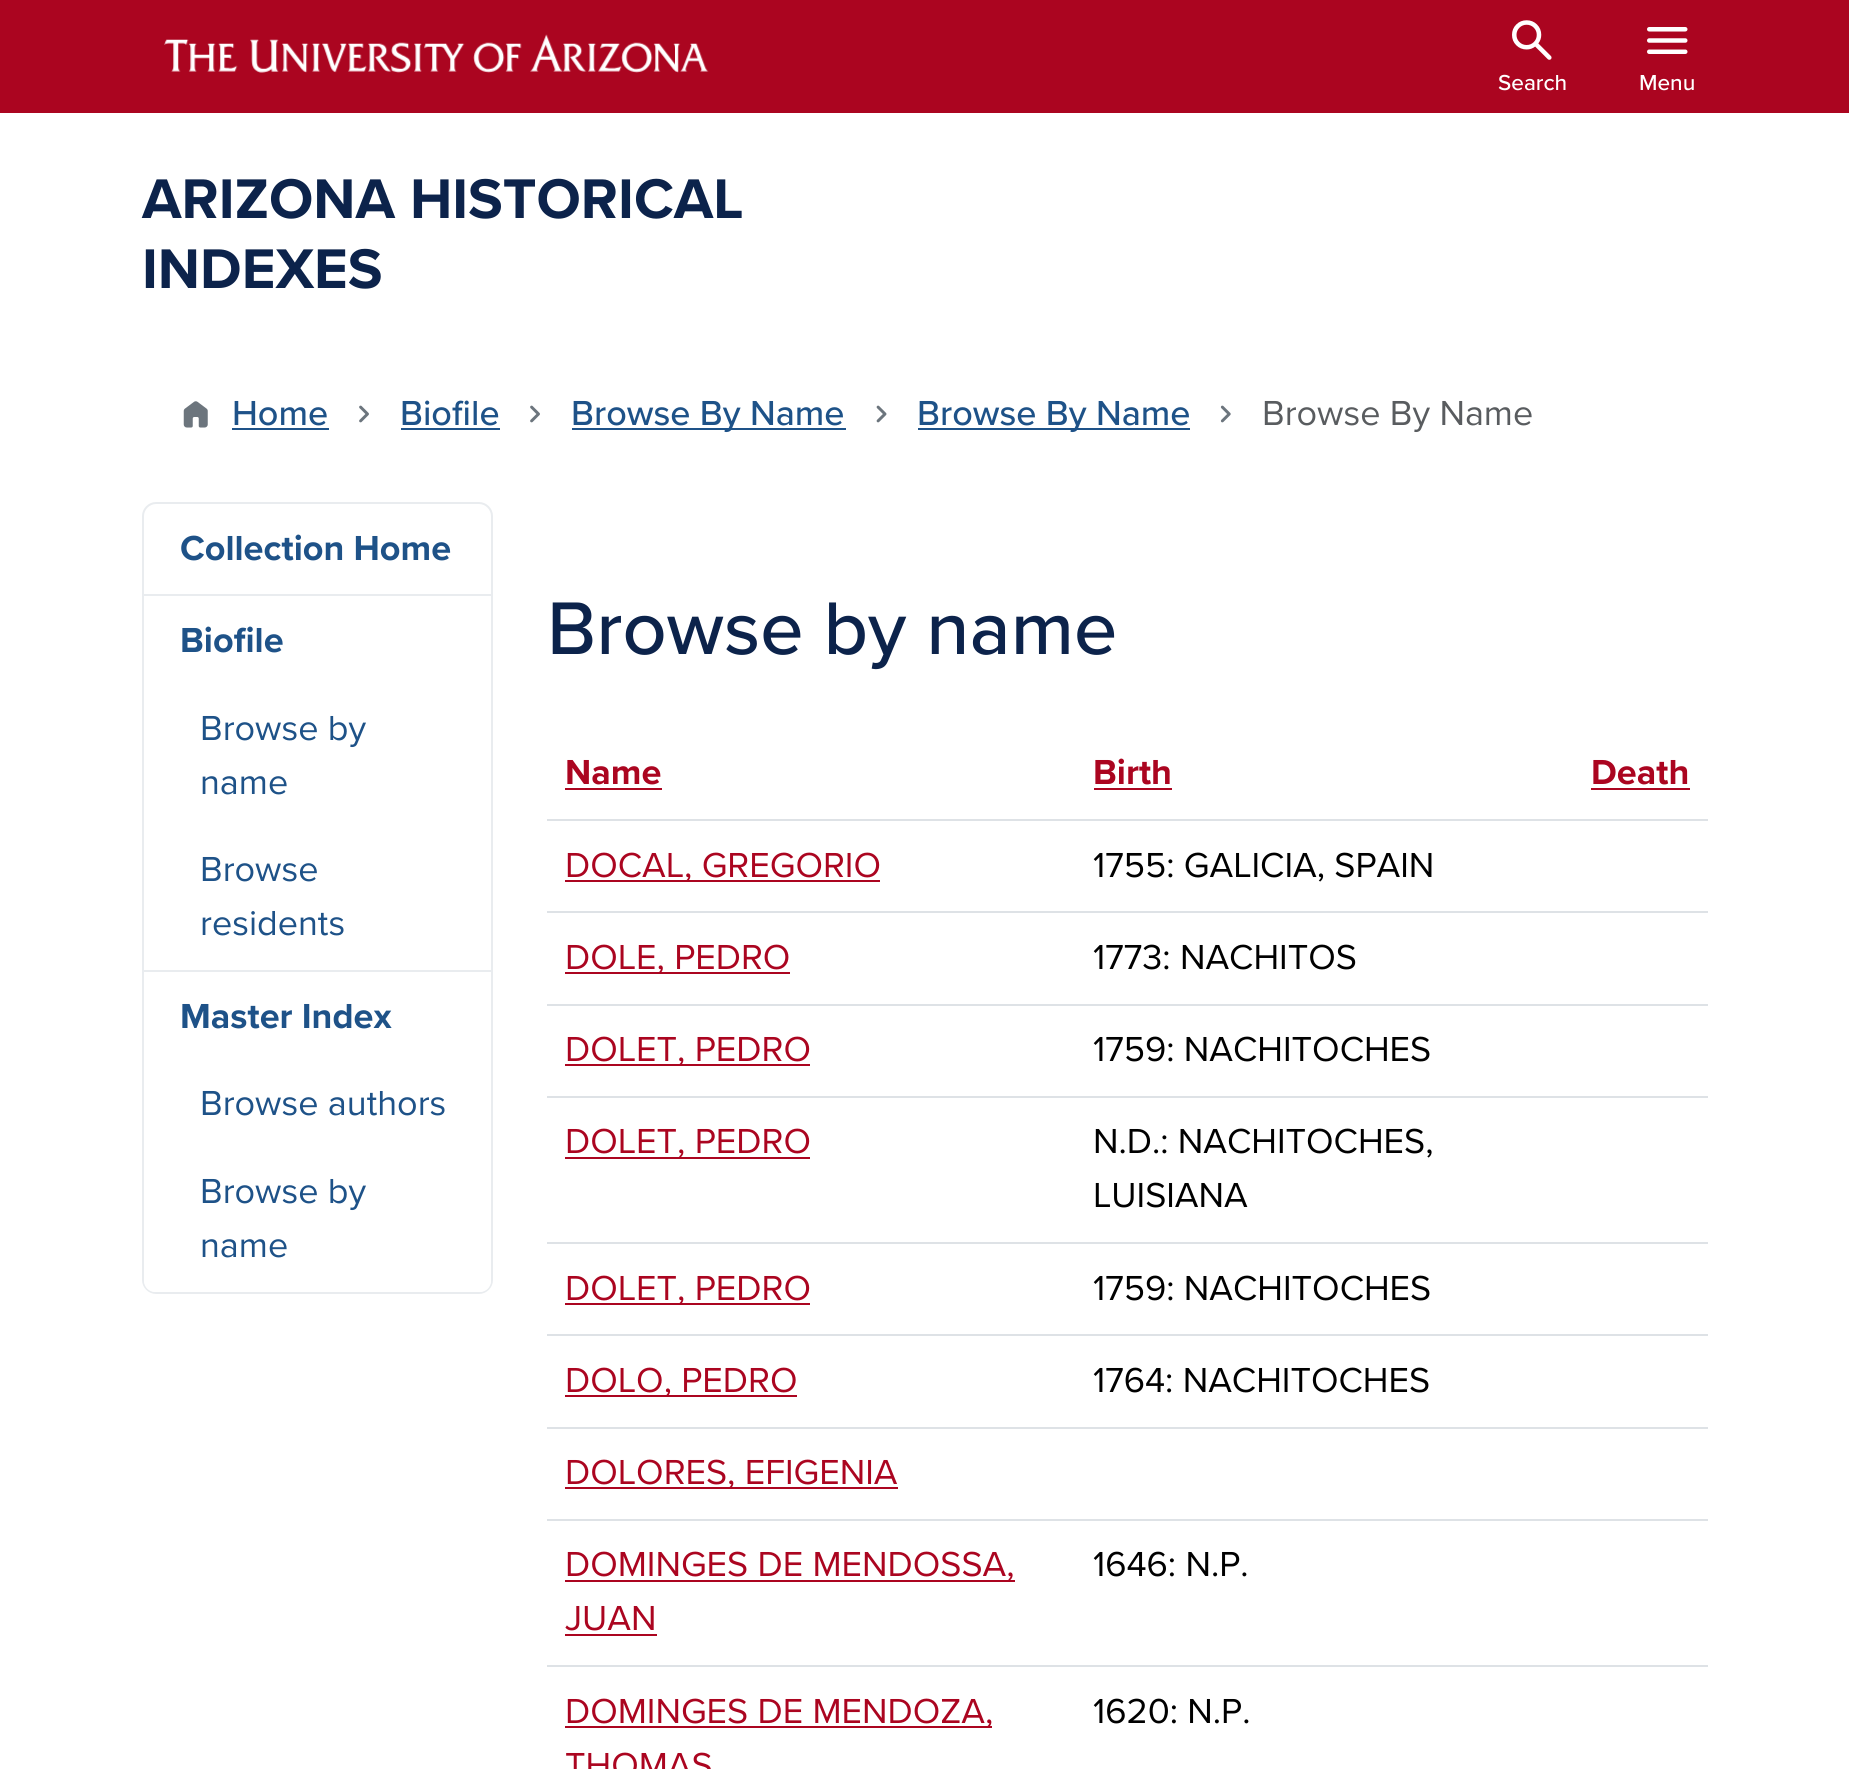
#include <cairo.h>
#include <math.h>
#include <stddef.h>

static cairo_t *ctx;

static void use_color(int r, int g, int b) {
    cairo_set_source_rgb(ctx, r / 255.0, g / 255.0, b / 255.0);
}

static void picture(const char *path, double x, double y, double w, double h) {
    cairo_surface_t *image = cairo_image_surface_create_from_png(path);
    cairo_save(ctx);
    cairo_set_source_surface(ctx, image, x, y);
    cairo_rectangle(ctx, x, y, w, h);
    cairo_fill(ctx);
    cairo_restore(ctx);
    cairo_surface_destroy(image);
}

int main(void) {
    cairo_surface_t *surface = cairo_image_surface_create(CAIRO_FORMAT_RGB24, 1849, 1769);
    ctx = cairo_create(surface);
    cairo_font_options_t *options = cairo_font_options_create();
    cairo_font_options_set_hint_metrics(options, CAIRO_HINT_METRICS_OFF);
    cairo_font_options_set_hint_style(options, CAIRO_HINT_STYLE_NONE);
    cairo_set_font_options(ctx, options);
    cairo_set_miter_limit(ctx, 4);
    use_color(255, 255, 255);
    cairo_paint(ctx);
    use_color(171, 5, 32);
    cairo_rectangle(ctx, 0, 0, 1849, 113);
    cairo_fill(ctx);
    picture("img1.png", 164, 34, 545, 39);
    picture("img2.png", 1512, 20, 40, 40);
    cairo_select_font_face(ctx, "Proxima Nova Medium", CAIRO_FONT_SLANT_NORMAL, CAIRO_FONT_WEIGHT_NORMAL);
    cairo_set_font_size(ctx, 22.5);
    use_color(255, 255, 255);
    cairo_move_to(ctx, 1498, 90);
    cairo_show_text(ctx, "Search");
    picture("img3.png", 1647, 27, 41, 27);
    cairo_move_to(ctx, 1639, 90);
    cairo_show_text(ctx, "Menu");
    cairo_select_font_face(ctx, "Proxima Nova", CAIRO_FONT_SLANT_NORMAL, CAIRO_FONT_WEIGHT_BOLD);
    cairo_set_font_size(ctx, 57.9);
    use_color(12, 35, 75);
    cairo_move_to(ctx, 142, 218);
    cairo_show_text(ctx, "ARIZONA HISTORICAL");
    cairo_move_to(ctx, 142, 288);
    cairo_show_text(ctx, "INDEXES");
    picture("img4.png", 183, 401, 25, 27);
    cairo_select_font_face(ctx, "Proxima Nova Medium", CAIRO_FONT_SLANT_NORMAL, CAIRO_FONT_WEIGHT_NORMAL);
    cairo_set_font_size(ctx, 36);
    use_color(30, 82, 136);
    cairo_move_to(ctx, 232, 425);
    cairo_show_text(ctx, "Home");
    cairo_rectangle(ctx, 232, 428, 97, 2);
    cairo_fill(ctx);
    picture("img5.png", 359, 405, 10, 18);
    cairo_move_to(ctx, 400, 425);
    cairo_show_text(ctx, "Biofile");
    cairo_rectangle(ctx, 401, 428, 99, 2);
    cairo_fill(ctx);
    picture("img5.png", 530, 405, 10, 18);
    cairo_rectangle(ctx, 572, 428, 274, 2);
    cairo_fill(ctx);
    cairo_move_to(ctx, 571, 425);
    cairo_show_text(ctx, "Browse By Name");
    picture("img6.png", 876, 405, 11, 18);
    cairo_rectangle(ctx, 918, 428, 272, 2);
    cairo_fill(ctx);
    cairo_move_to(ctx, 917, 425);
    cairo_show_text(ctx, "Browse By Name");
    picture("img7.png", 1220, 405, 11, 18);
    cairo_select_font_face(ctx, "Proxima Nova", CAIRO_FONT_SLANT_NORMAL, CAIRO_FONT_WEIGHT_NORMAL);
    use_color(89, 92, 95);
    cairo_move_to(ctx, 1262, 425);
    cairo_show_text(ctx, "Browse By Name");
    cairo_rectangle(ctx, 143, 595, 349, 376);
    use_color(233, 236, 239);
    cairo_stroke(ctx);
    cairo_new_path(ctx);
    cairo_move_to(ctx, 156, 503);
    cairo_line_to(ctx, 479, 503);
    cairo_curve_to(ctx, 486, 503, 492, 509, 492, 516);
    cairo_line_to(ctx, 492, 595);
    cairo_line_to(ctx, 143, 595);
    cairo_line_to(ctx, 143, 516);
    cairo_curve_to(ctx, 143, 509, 149, 503, 156, 503);
    cairo_close_path(ctx);
    cairo_stroke(ctx);
    cairo_select_font_face(ctx, "Proxima Nova", CAIRO_FONT_SLANT_NORMAL, CAIRO_FONT_WEIGHT_BOLD);
    use_color(30, 82, 136);
    cairo_move_to(ctx, 180, 560);
    cairo_show_text(ctx, "Collection Home");
    cairo_move_to(ctx, 180, 652);
    cairo_show_text(ctx, "Biofile");
    cairo_select_font_face(ctx, "Proxima Nova", CAIRO_FONT_SLANT_NORMAL, CAIRO_FONT_WEIGHT_NORMAL);
    cairo_move_to(ctx, 200, 740);
    cairo_show_text(ctx, "Browse by");
    cairo_move_to(ctx, 200, 794);
    cairo_show_text(ctx, "name");
    cairo_move_to(ctx, 200, 881);
    cairo_show_text(ctx, "Browse");
    cairo_move_to(ctx, 200, 935);
    cairo_show_text(ctx, "residents");
    cairo_new_path(ctx);
    cairo_move_to(ctx, 143, 971);
    cairo_line_to(ctx, 492, 971);
    cairo_line_to(ctx, 492, 1280);
    cairo_curve_to(ctx, 492, 1287, 486, 1293, 479, 1293);
    cairo_line_to(ctx, 156, 1293);
    cairo_curve_to(ctx, 149, 1293, 143, 1287, 143, 1280);
    cairo_close_path(ctx);
    use_color(233, 236, 239);
    cairo_stroke(ctx);
    cairo_select_font_face(ctx, "Proxima Nova", CAIRO_FONT_SLANT_NORMAL, CAIRO_FONT_WEIGHT_BOLD);
    use_color(30, 82, 136);
    cairo_move_to(ctx, 180, 1028);
    cairo_show_text(ctx, "Master Index");
    use_color(255, 255, 255);
    cairo_new_path(ctx);
    cairo_move_to(ctx, 144, 1062);
    cairo_line_to(ctx, 491, 1062);
    cairo_line_to(ctx, 491, 1281);
    cairo_curve_to(ctx, 491, 1287, 486, 1292, 480, 1292);
    cairo_line_to(ctx, 155, 1292);
    cairo_curve_to(ctx, 149, 1292, 144, 1287, 144, 1281);
    cairo_close_path(ctx);
    cairo_fill(ctx);
    cairo_select_font_face(ctx, "Proxima Nova", CAIRO_FONT_SLANT_NORMAL, CAIRO_FONT_WEIGHT_NORMAL);
    use_color(30, 82, 136);
    cairo_move_to(ctx, 200, 1115);
    cairo_show_text(ctx, "Browse authors");
    cairo_move_to(ctx, 200, 1203);
    cairo_show_text(ctx, "Browse by");
    cairo_move_to(ctx, 200, 1257);
    cairo_show_text(ctx, "name");
    cairo_select_font_face(ctx, "Proxima Nova Medium", CAIRO_FONT_SLANT_NORMAL, CAIRO_FONT_WEIGHT_NORMAL);
    cairo_set_font_size(ctx, 77.25);
    use_color(12, 35, 75);
    cairo_move_to(ctx, 547, 654);
    cairo_show_text(ctx, "Browse by name");
    cairo_select_font_face(ctx, "Proxima Nova", CAIRO_FONT_SLANT_NORMAL, CAIRO_FONT_WEIGHT_BOLD);
    cairo_set_font_size(ctx, 36);
    use_color(171, 5, 32);
    cairo_move_to(ctx, 565, 784);
    cairo_show_text(ctx, "Name");
    cairo_rectangle(ctx, 565, 788, 97, 2);
    cairo_fill(ctx);
    cairo_move_to(ctx, 1093, 784);
    cairo_show_text(ctx, "Birth");
    cairo_rectangle(ctx, 1094, 788, 78, 2);
    cairo_fill(ctx);
    use_color(222, 226, 230);
    cairo_rectangle(ctx, 547, 819, 1161, 2);
    cairo_fill(ctx);
    use_color(171, 5, 32);
    cairo_move_to(ctx, 1591, 784);
    cairo_show_text(ctx, "Death");
    cairo_rectangle(ctx, 1591, 788, 99, 2);
    cairo_fill(ctx);
    cairo_rectangle(ctx, 565, 880, 315, 2);
    cairo_fill(ctx);
    cairo_select_font_face(ctx, "Proxima Nova", CAIRO_FONT_SLANT_NORMAL, CAIRO_FONT_WEIGHT_NORMAL);
    cairo_move_to(ctx, 565, 877);
    cairo_show_text(ctx, "DOCAL, GREGORIO");
    use_color(0, 0, 0);
    cairo_move_to(ctx, 1093, 877);
    cairo_show_text(ctx, "1755: GALICIA, SPAIN");
    use_color(222, 226, 230);
    cairo_rectangle(ctx, 547, 911, 1161, 2);
    cairo_fill(ctx);
    use_color(171, 5, 32);
    cairo_rectangle(ctx, 565, 972, 225, 2);
    cairo_fill(ctx);
    cairo_move_to(ctx, 565, 969);
    cairo_show_text(ctx, "DOLE, PEDRO");
    use_color(0, 0, 0);
    cairo_move_to(ctx, 1093, 969);
    cairo_show_text(ctx, "1773: NACHITOS");
    use_color(222, 226, 230);
    cairo_rectangle(ctx, 547, 1004, 1161, 2);
    cairo_fill(ctx);
    use_color(171, 5, 32);
    cairo_rectangle(ctx, 565, 1064, 245, 2);
    cairo_fill(ctx);
    cairo_move_to(ctx, 565, 1061);
    cairo_show_text(ctx, "DOLET, PEDRO");
    use_color(0, 0, 0);
    cairo_move_to(ctx, 1093, 1061);
    cairo_show_text(ctx, "1759: NACHITOCHES");
    use_color(222, 226, 230);
    cairo_rectangle(ctx, 547, 1096, 1161, 2);
    cairo_fill(ctx);
    use_color(171, 5, 32);
    cairo_rectangle(ctx, 565, 1157, 245, 2);
    cairo_fill(ctx);
    cairo_move_to(ctx, 565, 1153);
    cairo_show_text(ctx, "DOLET, PEDRO");
    use_color(0, 0, 0);
    cairo_move_to(ctx, 1093, 1153);
    cairo_show_text(ctx, "N.D.: NACHITOCHES,");
    cairo_move_to(ctx, 1093, 1207);
    cairo_show_text(ctx, "LUISIANA");
    use_color(222, 226, 230);
    cairo_rectangle(ctx, 547, 1242, 1161, 2);
    cairo_fill(ctx);
    use_color(171, 5, 32);
    cairo_rectangle(ctx, 565, 1303, 245, 2);
    cairo_fill(ctx);
    cairo_move_to(ctx, 565, 1300);
    cairo_show_text(ctx, "DOLET, PEDRO");
    use_color(0, 0, 0);
    cairo_move_to(ctx, 1093, 1300);
    cairo_show_text(ctx, "1759: NACHITOCHES");
    use_color(222, 226, 230);
    cairo_rectangle(ctx, 547, 1334, 1161, 2);
    cairo_fill(ctx);
    use_color(171, 5, 32);
    cairo_rectangle(ctx, 565, 1395, 232, 2);
    cairo_fill(ctx);
    cairo_move_to(ctx, 565, 1392);
    cairo_show_text(ctx, "DOLO, PEDRO");
    use_color(0, 0, 0);
    cairo_move_to(ctx, 1093, 1392);
    cairo_show_text(ctx, "1764: NACHITOCHES");
    use_color(222, 226, 230);
    cairo_rectangle(ctx, 547, 1427, 1161, 2);
    cairo_fill(ctx);
    use_color(171, 5, 32);
    cairo_rectangle(ctx, 565, 1487, 333, 2);
    cairo_fill(ctx);
    cairo_move_to(ctx, 565, 1484);
    cairo_show_text(ctx, "DOLORES, EFIGENIA");
    use_color(222, 226, 230);
    cairo_rectangle(ctx, 547, 1519, 1161, 2);
    cairo_fill(ctx);
    use_color(171, 5, 32);
    cairo_rectangle(ctx, 565, 1580, 450, 2);
    cairo_fill(ctx);
    cairo_move_to(ctx, 565, 1576);
    cairo_show_text(ctx, "DOMINGES DE MENDOSSA,");
    cairo_move_to(ctx, 565, 1630);
    cairo_show_text(ctx, "JUAN");
    cairo_rectangle(ctx, 565, 1634, 92, 2);
    cairo_fill(ctx);
    use_color(0, 0, 0);
    cairo_move_to(ctx, 1093, 1576);
    cairo_show_text(ctx, "1646: N.P.");
    use_color(222, 226, 230);
    cairo_rectangle(ctx, 547, 1665, 1161, 2);
    cairo_fill(ctx);
    use_color(171, 5, 32);
    cairo_rectangle(ctx, 565, 1726, 427, 2);
    cairo_fill(ctx);
    cairo_move_to(ctx, 565, 1723);
    cairo_show_text(ctx, "DOMINGES DE MENDOZA,");
    cairo_move_to(ctx, 565, 1777);
    cairo_show_text(ctx, "THOMAS");
    use_color(0, 0, 0);
    cairo_move_to(ctx, 1093, 1723);
    cairo_show_text(ctx, "1620: N.P.");
    cairo_surface_write_to_png(surface, "result.png");
    cairo_font_options_destroy(options);
    cairo_destroy(ctx);
    cairo_surface_destroy(surface);
    return 0;
}
